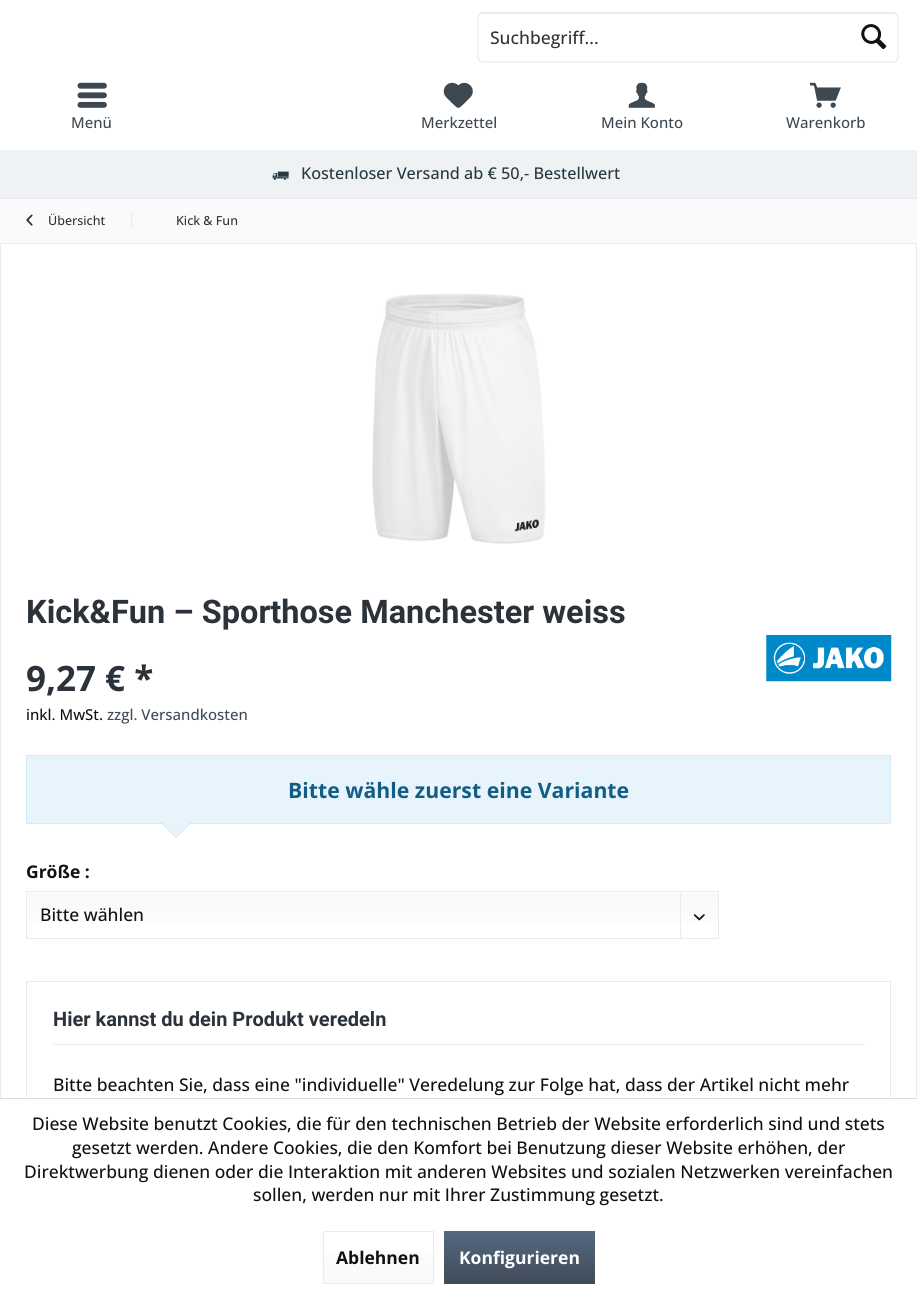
#include <cairo.h>
#include <math.h>
#include <stddef.h>

static cairo_t *ctx;

static void use_color(int r, int g, int b) {
    cairo_set_source_rgb(ctx, r / 255.0, g / 255.0, b / 255.0);
}

static void picture(const char *path, double x, double y, double w, double h) {
    cairo_surface_t *image = cairo_image_surface_create_from_png(path);
    cairo_save(ctx);
    cairo_set_source_surface(ctx, image, x, y);
    cairo_rectangle(ctx, x, y, w, h);
    cairo_fill(ctx);
    cairo_restore(ctx);
    cairo_surface_destroy(image);
}

int main(void) {
    cairo_surface_t *surface = cairo_image_surface_create(CAIRO_FORMAT_RGB24, 917, 1296);
    ctx = cairo_create(surface);
    cairo_font_options_t *options = cairo_font_options_create();
    cairo_font_options_set_hint_metrics(options, CAIRO_HINT_METRICS_OFF);
    cairo_font_options_set_hint_style(options, CAIRO_HINT_STYLE_NONE);
    cairo_set_font_options(ctx, options);
    cairo_set_miter_limit(ctx, 4);
    cairo_pattern_t *gradient;
    use_color(250, 250, 250);
    cairo_paint(ctx);
    use_color(255, 255, 255);
    cairo_rectangle(ctx, 0, 0, 917, 150);
    cairo_fill(ctx);
    cairo_new_path(ctx);
    cairo_move_to(ctx, 479.5, 14.5);
    cairo_line_to(ctx, 481.5, 13);
    cairo_line_to(ctx, 619.5, 13);
    cairo_line_to(ctx, 894, 13);
    cairo_line_to(ctx, 897, 14.5);
    use_color(219, 219, 229);
    cairo_set_line_width(ctx, 1.2);
    cairo_stroke(ctx);
    cairo_new_path(ctx);
    cairo_move_to(ctx, 897, 14.5);
    cairo_curve_to(ctx, 897.5, 15, 898, 16.5, 898, 17.5);
    cairo_line_to(ctx, 898, 57.5);
    cairo_curve_to(ctx, 898, 58.5, 897.5, 60, 897, 60.5);
    cairo_curve_to(ctx, 896, 61.5, 895, 62, 894, 62);
    cairo_line_to(ctx, 482.5, 62);
    cairo_curve_to(ctx, 481.5, 62, 480, 61.5, 479.5, 60.5);
    cairo_curve_to(ctx, 478.5, 60, 478, 58.5, 478, 57.5);
    cairo_line_to(ctx, 478, 17.5);
    cairo_curve_to(ctx, 478, 16.5, 478.5, 15, 479.5, 14.5);
    use_color(234, 234, 240);
    cairo_stroke(ctx);
    cairo_select_font_face(ctx, "Open Sans Medium", CAIRO_FONT_SLANT_NORMAL, CAIRO_FONT_WEIGHT_NORMAL);
    cairo_set_font_size(ctx, 17.5);
    use_color(51, 51, 51);
    cairo_move_to(ctx, 490, 44);
    cairo_show_text(ctx, "Suchbegriff...");
    picture("img1.png", 861, 24, 26, 25);
    picture("img2.png", 77, 82, 30, 26);
    cairo_set_font_size(ctx, 15);
    use_color(62, 72, 81);
    cairo_move_to(ctx, 71, 128);
    cairo_show_text(ctx, "Menü");
    picture("img3.png", 443, 82, 30, 26);
    cairo_move_to(ctx, 421, 128);
    cairo_show_text(ctx, "Merkzettel");
    picture("img4.png", 628, 82, 27, 26);
    cairo_move_to(ctx, 601, 128);
    cairo_show_text(ctx, "Mein Konto");
    picture("img5.png", 810, 82, 31, 26);
    cairo_move_to(ctx, 786, 128);
    cairo_show_text(ctx, "Warenkorb");
    use_color(238, 242, 245);
    cairo_rectangle(ctx, 0, 150, 917, 48);
    cairo_fill(ctx);
    picture("img6.png", 272, 171, 17, 9);
    cairo_set_font_size(ctx, 16.25);
    use_color(38, 56, 66);
    cairo_move_to(ctx, 301, 179);
    cairo_show_text(ctx, "Kostenloser Versand ab € 50,- Bestellwert");
    use_color(234, 234, 240);
    cairo_rectangle(ctx, 0, 198, 917, 1);
    cairo_fill(ctx);
    picture("img7.png", 26, 214, 7, 12);
    cairo_set_font_size(ctx, 12.5);
    use_color(51, 51, 51);
    cairo_move_to(ctx, 48, 225);
    cairo_show_text(ctx, "Übersicht");
    use_color(234, 234, 240);
    cairo_rectangle(ctx, 131, 211, 1, 18);
    cairo_fill(ctx);
    use_color(51, 51, 51);
    cairo_move_to(ctx, 176, 225);
    cairo_show_text(ctx, "Kick & Fun");
    use_color(255, 255, 255);
    cairo_rectangle(ctx, 1, 244, 915, 854);
    cairo_fill(ctx);
    use_color(234, 234, 240);
    cairo_rectangle(ctx, 0, 243, 917, 1);
    cairo_fill(ctx);
    cairo_rectangle(ctx, 916, 243, 1, 855);
    cairo_fill(ctx);
    cairo_rectangle(ctx, 0, 243, 1, 855);
    cairo_fill(ctx);
    picture("img8.png", 372, 293, 174, 251);
    cairo_select_font_face(ctx, "Roboto", CAIRO_FONT_SLANT_NORMAL, CAIRO_FONT_WEIGHT_BOLD);
    cairo_set_font_size(ctx, 32.5);
    use_color(43, 50, 58);
    cairo_move_to(ctx, 26, 623);
    cairo_show_text(ctx, "Kick&Fun – Sporthose Manchester weiss");
    picture("img9.png", 766, 635, 126, 47);
    cairo_select_font_face(ctx, "Open Sans", CAIRO_FONT_SLANT_NORMAL, CAIRO_FONT_WEIGHT_BOLD);
    cairo_set_font_size(ctx, 35);
    cairo_move_to(ctx, 26, 691);
    cairo_show_text(ctx, "9,27 € *");
    cairo_select_font_face(ctx, "Open Sans Medium", CAIRO_FONT_SLANT_NORMAL, CAIRO_FONT_WEIGHT_NORMAL);
    cairo_set_font_size(ctx, 15);
    use_color(17, 17, 17);
    cairo_move_to(ctx, 26, 720);
    cairo_show_text(ctx, "inkl. MwSt.");
    use_color(64, 75, 88);
    cairo_move_to(ctx, 107, 720);
    cairo_show_text(ctx, "zzgl. Versandkosten");
    use_color(231, 244, 252);
    cairo_rectangle(ctx, 26.5, 755.5, 864, 68);
    cairo_fill_preserve(ctx);
    use_color(209, 235, 248);
    cairo_set_line_width(ctx, 1);
    cairo_stroke(ctx);
    cairo_select_font_face(ctx, "Open Sans", CAIRO_FONT_SLANT_NORMAL, CAIRO_FONT_WEIGHT_BOLD);
    cairo_set_font_size(ctx, 21.25);
    use_color(19, 93, 132);
    cairo_move_to(ctx, 288, 798);
    cairo_show_text(ctx, "Bitte wähle zuerst eine Variante");
    use_color(231, 244, 252);
    cairo_new_path(ctx);
    cairo_move_to(ctx, 191, 823);
    cairo_line_to(ctx, 176, 838);
    cairo_line_to(ctx, 161, 823);
    cairo_line_to(ctx, 176, 808);
    cairo_close_path(ctx);
    cairo_fill(ctx);
    use_color(209, 235, 248);
    cairo_new_path(ctx);
    cairo_move_to(ctx, 191, 823);
    cairo_line_to(ctx, 176, 838);
    cairo_line_to(ctx, 175, 837.5);
    cairo_line_to(ctx, 190.5, 822);
    cairo_close_path(ctx);
    cairo_fill(ctx);
    cairo_new_path(ctx);
    cairo_move_to(ctx, 177, 837.5);
    cairo_line_to(ctx, 176, 838);
    cairo_line_to(ctx, 161, 823);
    cairo_line_to(ctx, 162, 822);
    cairo_close_path(ctx);
    cairo_fill(ctx);
    cairo_set_font_size(ctx, 17.5);
    use_color(17, 17, 17);
    cairo_move_to(ctx, 26, 878);
    cairo_show_text(ctx, "Größe :");
    gradient = cairo_pattern_create_linear(373, 893, 373, 938);
    cairo_pattern_add_color_stop_rgba(gradient, 0, 0.973, 0.973, 0.98, 1);
    cairo_pattern_add_color_stop_rgba(gradient, 1, 1, 1, 1, 1);
    cairo_set_source(ctx, gradient);
    cairo_pattern_destroy(gradient);
    cairo_rectangle(ctx, 28, 893, 690, 29);
    cairo_fill(ctx);
    cairo_rectangle(ctx, 26.5, 891.5, 692, 47);
    use_color(234, 234, 240);
    cairo_stroke(ctx);
    cairo_select_font_face(ctx, "Open Sans Medium", CAIRO_FONT_SLANT_NORMAL, CAIRO_FONT_WEIGHT_NORMAL);
    use_color(17, 17, 17);
    cairo_move_to(ctx, 40, 921);
    cairo_show_text(ctx, "Bitte wählen");
    use_color(234, 234, 240);
    cairo_rectangle(ctx, 680, 893, 1, 45);
    cairo_fill(ctx);
    picture("img10.png", 693, 914, 12, 7);
    cairo_rectangle(ctx, 26.5, 981.5, 864, 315);
    cairo_stroke(ctx);
    cairo_rectangle(ctx, 53, 1044, 812, 1);
    cairo_fill(ctx);
    cairo_select_font_face(ctx, "Roboto", CAIRO_FONT_SLANT_NORMAL, CAIRO_FONT_WEIGHT_BOLD);
    cairo_set_font_size(ctx, 20);
    use_color(43, 50, 58);
    cairo_move_to(ctx, 53, 1026);
    cairo_show_text(ctx, "Hier kannst du dein Produkt veredeln");
    cairo_select_font_face(ctx, "Open Sans Medium", CAIRO_FONT_SLANT_NORMAL, CAIRO_FONT_WEIGHT_NORMAL);
    cairo_set_font_size(ctx, 17.5);
    use_color(17, 17, 17);
    cairo_move_to(ctx, 53, 1091);
    cairo_show_text(ctx, "Bitte beachten Sie, dass eine \"individuelle\" Veredelung zur Folge hat, dass der Artikel nicht mehr");
    use_color(255, 255, 255);
    cairo_rectangle(ctx, 0, 1099, 917, 197);
    cairo_fill(ctx);
    use_color(218, 218, 229);
    cairo_rectangle(ctx, 0, 1098, 917, 1);
    cairo_fill(ctx);
    use_color(17, 17, 17);
    cairo_move_to(ctx, 32, 1130);
    cairo_show_text(ctx, "Diese Website benutzt Cookies, die für den technischen Betrieb der Website erforderlich sind und stets");
    cairo_move_to(ctx, 72, 1154);
    cairo_show_text(ctx, "gesetzt werden. Andere Cookies, die den Komfort bei Benutzung dieser Website erhöhen, der");
    cairo_move_to(ctx, 24, 1178);
    cairo_show_text(ctx, "Direktwerbung dienen oder die Interaktion mit anderen Websites und sozialen Netzwerken vereinfachen");
    cairo_move_to(ctx, 253, 1201);
    cairo_show_text(ctx, "sollen, werden nur mit Ihrer Zustimmung gesetzt.");
    gradient = cairo_pattern_create_linear(378, 1233, 378, 1283);
    cairo_pattern_add_color_stop_rgba(gradient, 0, 1, 1, 1, 1);
    cairo_pattern_add_color_stop_rgba(gradient, 1, 0.973, 0.973, 0.98, 1);
    cairo_set_source(ctx, gradient);
    cairo_pattern_destroy(gradient);
    cairo_rectangle(ctx, 324, 1251, 109, 32);
    cairo_fill(ctx);
    cairo_rectangle(ctx, 323.5, 1231.5, 110, 52);
    use_color(234, 234, 240);
    cairo_stroke(ctx);
    cairo_select_font_face(ctx, "Open Sans", CAIRO_FONT_SLANT_NORMAL, CAIRO_FONT_WEIGHT_BOLD);
    use_color(17, 17, 17);
    cairo_move_to(ctx, 336, 1264);
    cairo_show_text(ctx, "Ablehnen");
    gradient = cairo_pattern_create_linear(519, 1231, 519, 1284);
    cairo_pattern_add_color_stop_rgba(gradient, 0, 0.329, 0.412, 0.506, 1);
    cairo_pattern_add_color_stop_rgba(gradient, 1, 0.251, 0.294, 0.345, 1);
    cairo_set_source(ctx, gradient);
    cairo_pattern_destroy(gradient);
    cairo_rectangle(ctx, 444, 1231, 151, 53);
    cairo_fill(ctx);
    use_color(255, 255, 255);
    cairo_move_to(ctx, 459, 1264);
    cairo_show_text(ctx, "Konfigurieren");
    cairo_surface_write_to_png(surface, "result.png");
    cairo_font_options_destroy(options);
    cairo_destroy(ctx);
    cairo_surface_destroy(surface);
    return 0;
}
